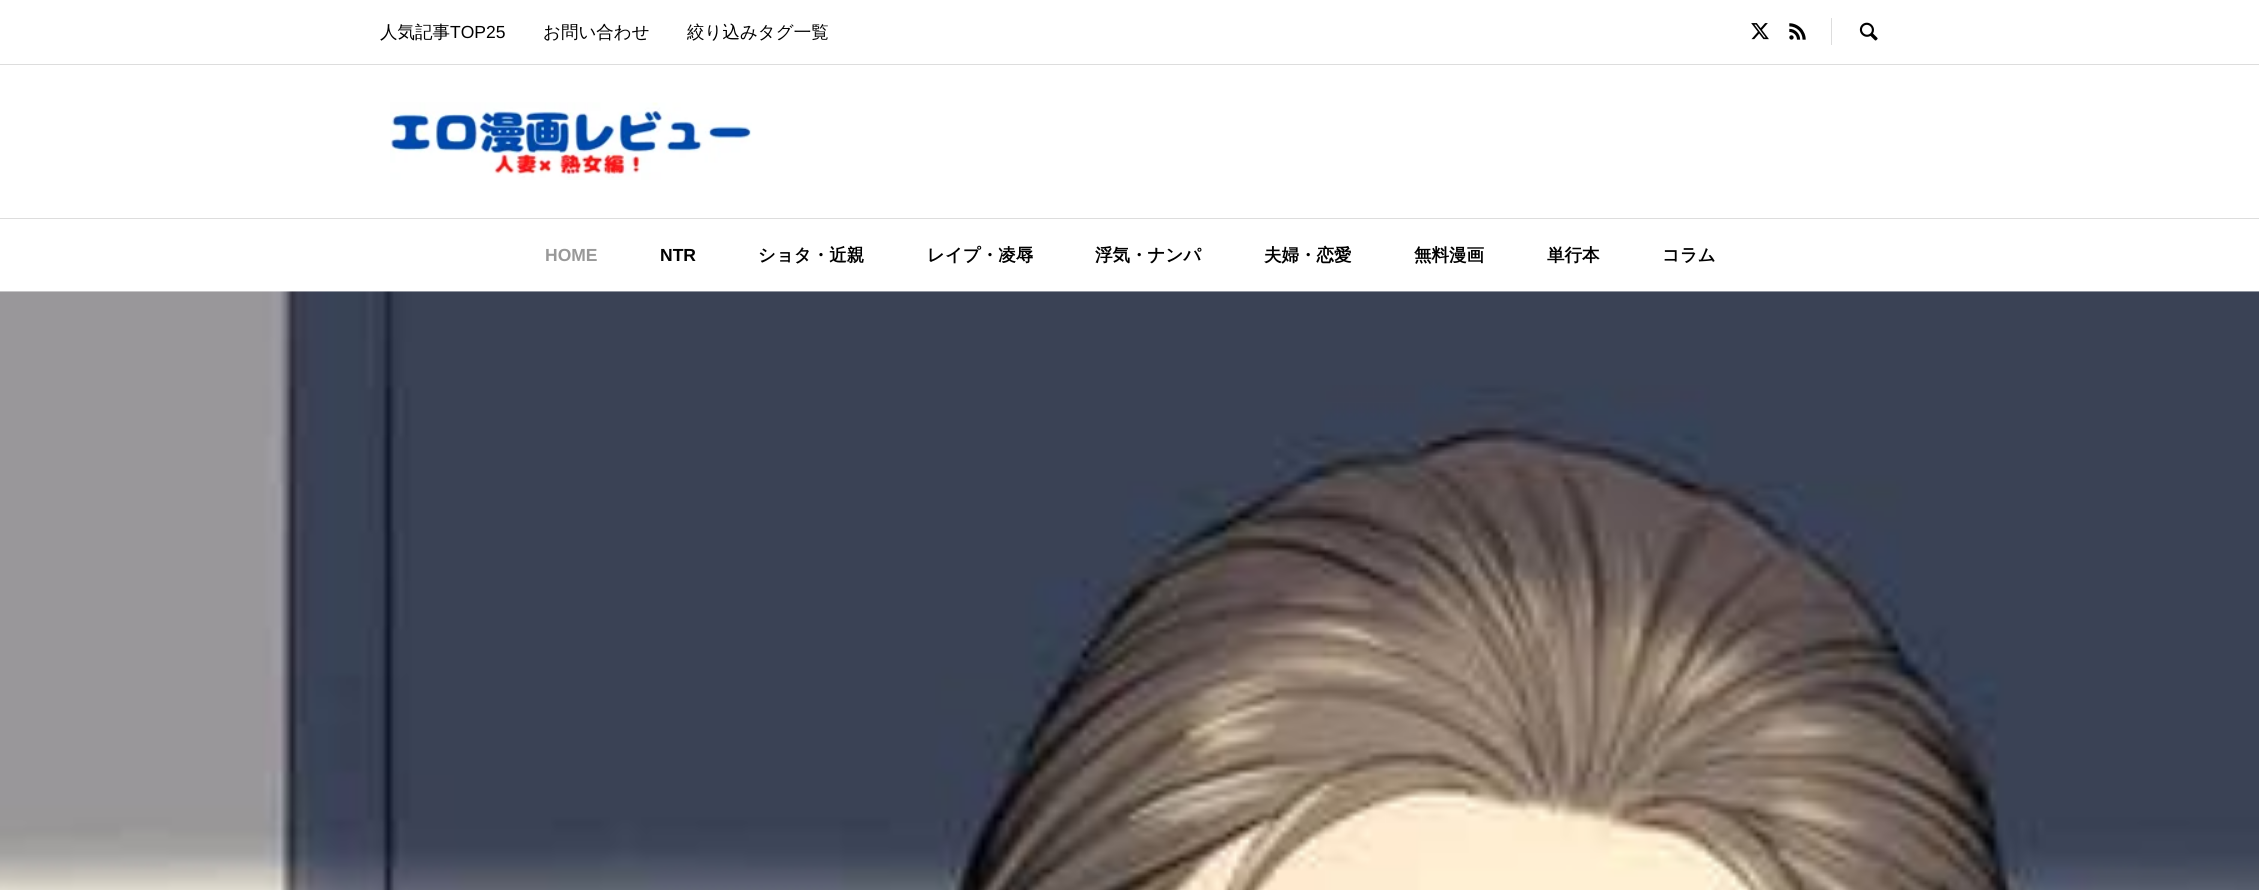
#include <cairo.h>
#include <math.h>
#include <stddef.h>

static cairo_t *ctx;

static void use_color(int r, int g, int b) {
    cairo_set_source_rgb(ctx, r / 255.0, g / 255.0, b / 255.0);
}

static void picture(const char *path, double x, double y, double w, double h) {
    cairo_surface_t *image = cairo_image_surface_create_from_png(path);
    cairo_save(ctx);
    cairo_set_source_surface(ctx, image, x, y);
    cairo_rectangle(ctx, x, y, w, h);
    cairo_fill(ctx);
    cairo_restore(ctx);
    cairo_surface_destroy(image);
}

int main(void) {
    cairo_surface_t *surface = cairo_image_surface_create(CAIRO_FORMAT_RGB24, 2259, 890);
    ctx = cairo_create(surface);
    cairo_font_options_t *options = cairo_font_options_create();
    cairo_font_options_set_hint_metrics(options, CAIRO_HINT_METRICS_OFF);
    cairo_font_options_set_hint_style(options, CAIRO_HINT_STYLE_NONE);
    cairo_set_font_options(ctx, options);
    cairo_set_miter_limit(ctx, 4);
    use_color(255, 255, 255);
    cairo_paint(ctx);
    use_color(221, 221, 221);
    cairo_rectangle(ctx, 0, 64, 2259, 1);
    cairo_fill(ctx);
    cairo_select_font_face(ctx, "WenQuanYi Zen Hei Medium", CAIRO_FONT_SLANT_NORMAL, CAIRO_FONT_WEIGHT_NORMAL);
    cairo_set_font_size(ctx, 17.5);
    use_color(0, 0, 0);
    cairo_move_to(ctx, 380, 38);
    cairo_show_text(ctx, "人気記事");
    cairo_select_font_face(ctx, "Liberation Sans", CAIRO_FONT_SLANT_NORMAL, CAIRO_FONT_WEIGHT_NORMAL);
    cairo_move_to(ctx, 450, 38);
    cairo_show_text(ctx, "TOP25");
    cairo_select_font_face(ctx, "WenQuanYi Zen Hei Medium", CAIRO_FONT_SLANT_NORMAL, CAIRO_FONT_WEIGHT_NORMAL);
    cairo_move_to(ctx, 543, 38);
    cairo_show_text(ctx, "お問い合わせ");
    cairo_move_to(ctx, 687, 38);
    cairo_show_text(ctx, "絞り込みタグ一覧");
    picture("img1.png", 1751, 23, 18, 17);
    picture("img2.png", 1789, 23, 17, 17);
    use_color(221, 221, 221);
    cairo_rectangle(ctx, 1831, 18, 1, 27);
    cairo_fill(ctx);
    picture("img3.png", 1859, 22, 19, 19);
    picture("img4.png", 390, 102, 362, 78);
    cairo_rectangle(ctx, 0, 218, 2259, 1);
    cairo_fill(ctx);
    cairo_select_font_face(ctx, "Liberation Sans", CAIRO_FONT_SLANT_NORMAL, CAIRO_FONT_WEIGHT_BOLD);
    use_color(153, 153, 153);
    cairo_move_to(ctx, 545, 261);
    cairo_show_text(ctx, "HOME");
    use_color(0, 0, 0);
    cairo_move_to(ctx, 660, 261);
    cairo_show_text(ctx, "NTR");
    cairo_select_font_face(ctx, "WenQuanYi Zen Hei", CAIRO_FONT_SLANT_NORMAL, CAIRO_FONT_WEIGHT_BOLD);
    cairo_move_to(ctx, 758, 261);
    cairo_show_text(ctx, "ショタ・近親");
    cairo_move_to(ctx, 927, 261);
    cairo_show_text(ctx, "レイプ・凌辱");
    cairo_move_to(ctx, 1095, 261);
    cairo_show_text(ctx, "浮気・ナンパ");
    cairo_move_to(ctx, 1264, 261);
    cairo_show_text(ctx, "夫婦・恋愛");
    cairo_move_to(ctx, 1414, 261);
    cairo_show_text(ctx, "無料漫画");
    cairo_move_to(ctx, 1547, 261);
    cairo_show_text(ctx, "単行本");
    cairo_move_to(ctx, 1662, 261);
    cairo_show_text(ctx, "コラム");
    picture("img5.png", 0, 291, 2259, 599);
    cairo_surface_write_to_png(surface, "result.png");
    cairo_font_options_destroy(options);
    cairo_destroy(ctx);
    cairo_surface_destroy(surface);
    return 0;
}
